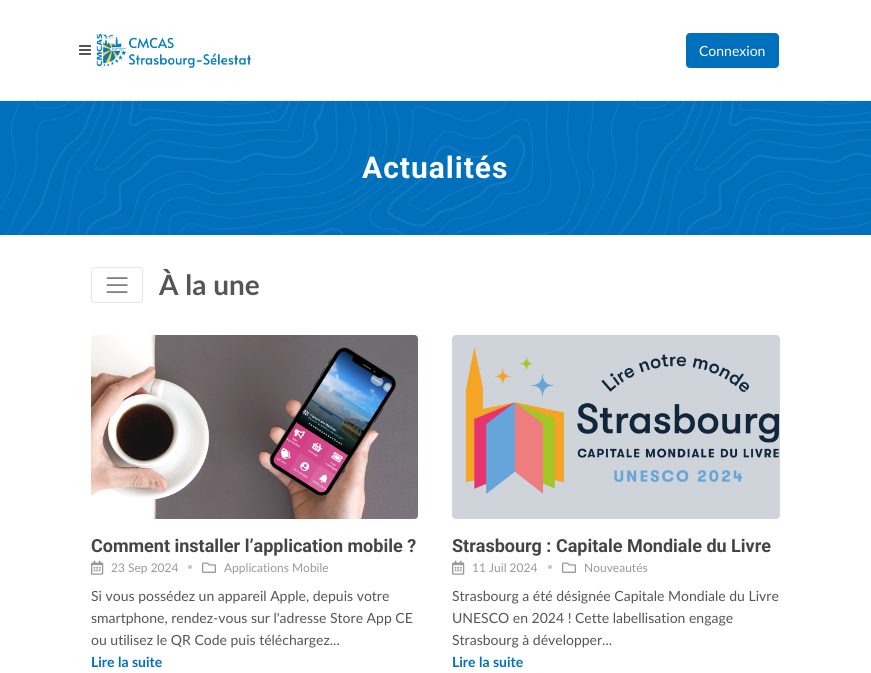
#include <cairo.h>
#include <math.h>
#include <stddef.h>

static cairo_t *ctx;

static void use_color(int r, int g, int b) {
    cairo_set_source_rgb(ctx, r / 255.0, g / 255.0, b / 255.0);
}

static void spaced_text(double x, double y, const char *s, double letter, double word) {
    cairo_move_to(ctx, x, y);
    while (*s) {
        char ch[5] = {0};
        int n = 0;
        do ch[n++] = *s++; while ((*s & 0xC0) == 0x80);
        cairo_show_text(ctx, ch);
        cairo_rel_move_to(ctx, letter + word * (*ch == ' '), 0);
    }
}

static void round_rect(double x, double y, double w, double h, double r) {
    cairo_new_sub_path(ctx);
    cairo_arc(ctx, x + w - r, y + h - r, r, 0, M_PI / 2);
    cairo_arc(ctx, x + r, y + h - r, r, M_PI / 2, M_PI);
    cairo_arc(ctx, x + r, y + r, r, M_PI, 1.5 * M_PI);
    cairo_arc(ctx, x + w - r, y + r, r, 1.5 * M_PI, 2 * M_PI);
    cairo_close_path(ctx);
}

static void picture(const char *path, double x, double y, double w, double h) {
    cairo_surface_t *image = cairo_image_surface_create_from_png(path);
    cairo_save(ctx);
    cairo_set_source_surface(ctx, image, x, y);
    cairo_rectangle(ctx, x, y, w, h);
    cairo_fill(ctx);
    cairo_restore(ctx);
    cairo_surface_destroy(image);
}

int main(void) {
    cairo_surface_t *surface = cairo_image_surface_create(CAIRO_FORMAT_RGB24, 871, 673);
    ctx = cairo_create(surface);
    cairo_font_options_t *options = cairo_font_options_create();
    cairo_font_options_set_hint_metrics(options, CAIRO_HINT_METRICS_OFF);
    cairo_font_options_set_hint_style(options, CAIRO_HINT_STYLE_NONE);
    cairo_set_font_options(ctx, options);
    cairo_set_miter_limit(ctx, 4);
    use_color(255, 255, 255);
    cairo_paint(ctx);
    use_color(238, 238, 238);
    cairo_rectangle(ctx, 0, 100, 871, 1);
    cairo_fill(ctx);
    picture("img1.png", 79, 45, 12, 10);
    picture("img2.png", 96, 33, 156, 35);
    use_color(0, 112, 188);
    round_rect(686.5, 33.5, 92, 34, 3.5);
    cairo_fill_preserve(ctx);
    cairo_set_line_width(ctx, 1);
    cairo_stroke(ctx);
    cairo_select_font_face(ctx, "Lato", CAIRO_FONT_SLANT_NORMAL, CAIRO_FONT_WEIGHT_NORMAL);
    cairo_set_font_size(ctx, 14);
    use_color(255, 255, 255);
    cairo_move_to(ctx, 699, 56);
    cairo_show_text(ctx, "Connexion");
    use_color(0, 112, 188);
    cairo_rectangle(ctx, 0, 101, 871, 134);
    cairo_fill(ctx);
    picture("img3.png", 0, 101, 871, 134);
    cairo_select_font_face(ctx, "Roboto", CAIRO_FONT_SLANT_NORMAL, CAIRO_FONT_WEIGHT_BOLD);
    cairo_set_font_size(ctx, 30);
    use_color(255, 255, 255);
    spaced_text(362, 178, "Actualités", 1, 0);
    round_rect(91.5, 267.5, 51, 35, 3.5);
    use_color(230, 230, 230);
    cairo_stroke(ctx);
    picture("img4.png", 106, 277, 22, 16);
    cairo_select_font_face(ctx, "Lato", CAIRO_FONT_SLANT_NORMAL, CAIRO_FONT_WEIGHT_BOLD);
    cairo_set_font_size(ctx, 28);
    use_color(85, 85, 85);
    cairo_move_to(ctx, 159, 295);
    cairo_show_text(ctx, "À la une");
    picture("img5.png", 91, 335, 327, 184);
    cairo_select_font_face(ctx, "Roboto", CAIRO_FONT_SLANT_NORMAL, CAIRO_FONT_WEIGHT_BOLD);
    cairo_set_font_size(ctx, 18);
    use_color(68, 68, 68);
    cairo_move_to(ctx, 91, 552);
    cairo_show_text(ctx, "Comment installer l’application mobile ?");
    picture("img6.png", 91, 560, 13, 15);
    cairo_select_font_face(ctx, "Lato", CAIRO_FONT_SLANT_NORMAL, CAIRO_FONT_WEIGHT_NORMAL);
    cairo_set_font_size(ctx, 12);
    use_color(153, 153, 153);
    cairo_move_to(ctx, 111, 572);
    cairo_show_text(ctx, "23 Sep 2024");
    use_color(198, 198, 198);
    cairo_new_path(ctx);
    cairo_arc(ctx, 190, 567, 2, 0, 2 * M_PI);
    cairo_fill(ctx);
    picture("img7.png", 202, 562, 14, 11);
    use_color(153, 153, 153);
    cairo_move_to(ctx, 224, 572);
    cairo_show_text(ctx, "Applications Mobile");
    cairo_set_font_size(ctx, 14);
    use_color(85, 85, 85);
    cairo_move_to(ctx, 91, 601);
    cairo_show_text(ctx, "Si vous possédez un appareil Apple, depuis votre");
    cairo_move_to(ctx, 91, 623);
    cairo_show_text(ctx, "smartphone, rendez-vous sur l'adresse Store App CE");
    cairo_move_to(ctx, 91, 645);
    cairo_show_text(ctx, "ou utilisez le QR Code puis téléchargez...");
    cairo_select_font_face(ctx, "Lato", CAIRO_FONT_SLANT_NORMAL, CAIRO_FONT_WEIGHT_BOLD);
    use_color(0, 112, 188);
    cairo_move_to(ctx, 91, 667);
    cairo_show_text(ctx, "Lire la suite");
    use_color(206, 212, 218);
    round_rect(452, 335, 328, 184, 4);
    cairo_fill(ctx);
    picture("img8.png", 465, 347, 315, 147);
    cairo_select_font_face(ctx, "Roboto", CAIRO_FONT_SLANT_NORMAL, CAIRO_FONT_WEIGHT_BOLD);
    cairo_set_font_size(ctx, 18);
    use_color(68, 68, 68);
    cairo_move_to(ctx, 452, 552);
    cairo_show_text(ctx, "Strasbourg : Capitale Mondiale du Livre");
    picture("img6.png", 452, 560, 13, 15);
    cairo_select_font_face(ctx, "Lato", CAIRO_FONT_SLANT_NORMAL, CAIRO_FONT_WEIGHT_NORMAL);
    cairo_set_font_size(ctx, 12);
    use_color(153, 153, 153);
    cairo_move_to(ctx, 472, 572);
    cairo_show_text(ctx, "11 Juil 2024");
    use_color(198, 198, 198);
    cairo_new_path(ctx);
    cairo_arc(ctx, 550, 567, 2, 0, 2 * M_PI);
    cairo_fill(ctx);
    picture("img7.png", 562, 562, 14, 11);
    use_color(153, 153, 153);
    cairo_move_to(ctx, 584, 572);
    cairo_show_text(ctx, "Nouveautés");
    cairo_set_font_size(ctx, 14);
    use_color(85, 85, 85);
    cairo_move_to(ctx, 452, 601);
    cairo_show_text(ctx, "Strasbourg a été désignée Capitale Mondiale du Livre");
    cairo_move_to(ctx, 452, 623);
    cairo_show_text(ctx, "UNESCO en 2024 ! Cette labellisation engage");
    cairo_move_to(ctx, 452, 645);
    cairo_show_text(ctx, "Strasbourg à développer...");
    cairo_select_font_face(ctx, "Lato", CAIRO_FONT_SLANT_NORMAL, CAIRO_FONT_WEIGHT_BOLD);
    use_color(0, 112, 188);
    cairo_move_to(ctx, 452, 667);
    cairo_show_text(ctx, "Lire la suite");
    cairo_surface_write_to_png(surface, "result.png");
    cairo_font_options_destroy(options);
    cairo_destroy(ctx);
    cairo_surface_destroy(surface);
    return 0;
}
